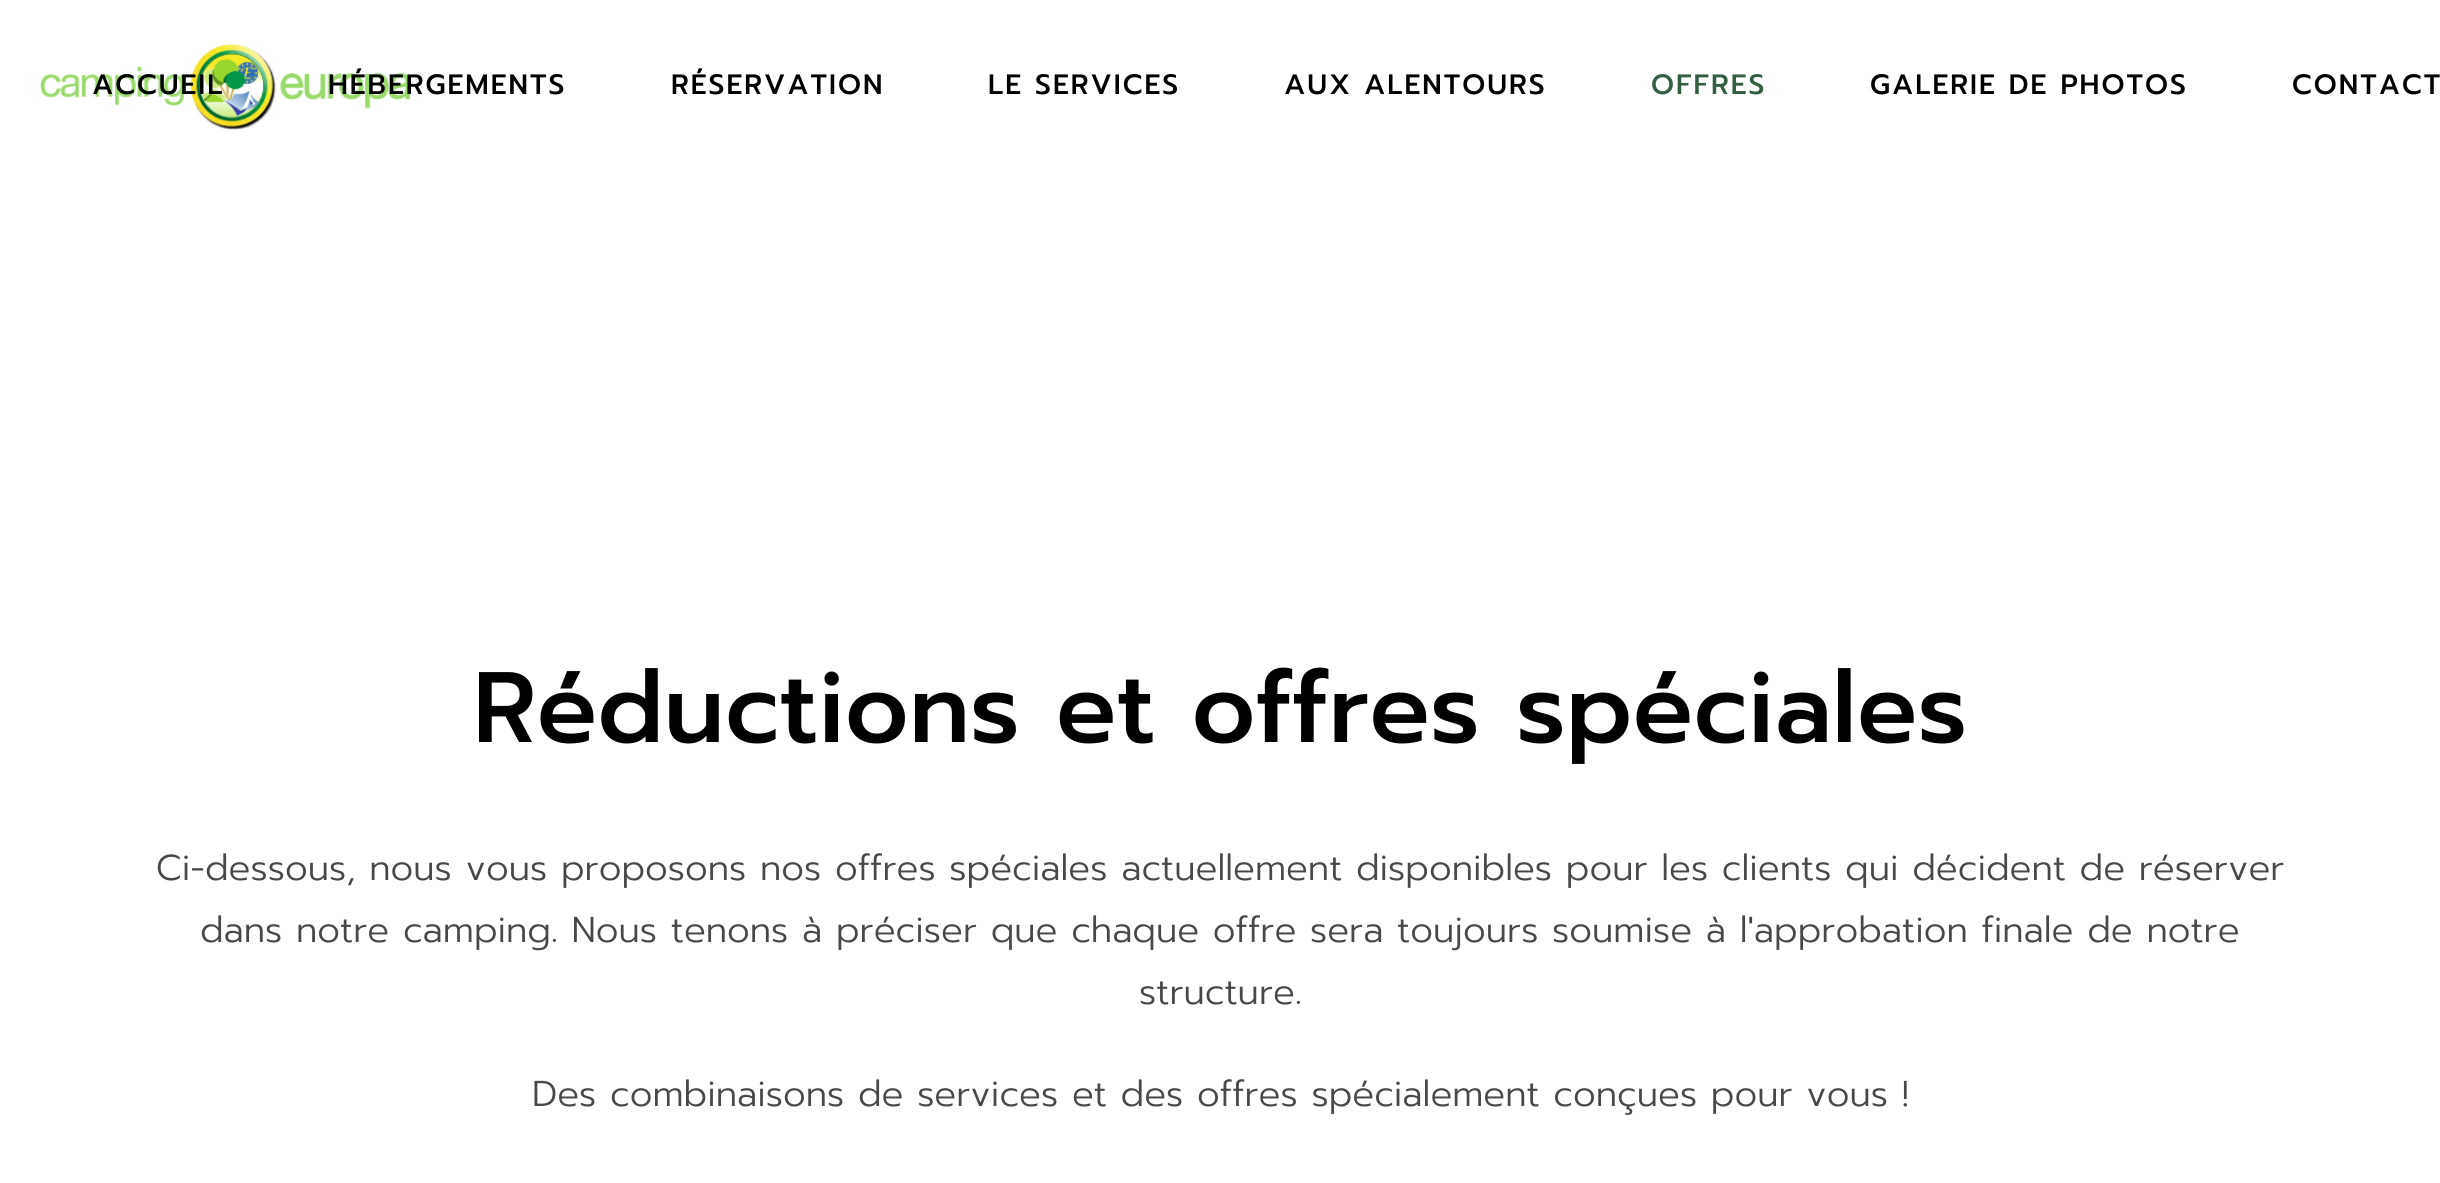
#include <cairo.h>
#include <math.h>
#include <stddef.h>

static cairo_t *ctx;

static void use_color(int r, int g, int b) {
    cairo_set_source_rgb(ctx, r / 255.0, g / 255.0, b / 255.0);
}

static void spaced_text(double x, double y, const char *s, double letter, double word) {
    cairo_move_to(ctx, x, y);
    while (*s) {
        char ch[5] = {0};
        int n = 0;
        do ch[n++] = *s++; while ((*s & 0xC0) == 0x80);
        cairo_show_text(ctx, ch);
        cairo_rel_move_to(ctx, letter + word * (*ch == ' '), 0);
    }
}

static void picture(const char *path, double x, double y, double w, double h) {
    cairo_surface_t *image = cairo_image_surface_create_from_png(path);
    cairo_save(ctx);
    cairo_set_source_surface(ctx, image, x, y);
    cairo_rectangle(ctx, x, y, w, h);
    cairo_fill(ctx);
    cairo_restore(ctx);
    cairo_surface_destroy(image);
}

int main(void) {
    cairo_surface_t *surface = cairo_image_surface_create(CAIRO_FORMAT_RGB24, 2440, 1183);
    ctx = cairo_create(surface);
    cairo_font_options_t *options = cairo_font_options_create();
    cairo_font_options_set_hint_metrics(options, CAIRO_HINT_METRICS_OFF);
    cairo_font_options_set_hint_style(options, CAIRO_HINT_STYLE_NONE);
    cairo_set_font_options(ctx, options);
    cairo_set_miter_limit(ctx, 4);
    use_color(255, 255, 255);
    cairo_paint(ctx);
    picture("img1.png", 40, 44, 370, 86);
    cairo_select_font_face(ctx, "Prompt Medium", CAIRO_FONT_SLANT_NORMAL, CAIRO_FONT_WEIGHT_NORMAL);
    cairo_set_font_size(ctx, 28);
    use_color(0, 0, 0);
    spaced_text(92, 94, "ACCUEIL", 2, 0);
    spaced_text(328, 94, "HÉBERGEMENTS", 2, 0);
    spaced_text(671, 94, "RÉSERVATION", 2, 0);
    spaced_text(988, 94, "LE SERVICES", 2, 0);
    spaced_text(1284, 94, "AUX ALENTOURS", 2, 0);
    use_color(52, 94, 65);
    spaced_text(1651, 94, "OFFRES", 2, 0);
    use_color(0, 0, 0);
    spaced_text(1870, 94, "GALERIE DE PHOTOS", 2, 0);
    spaced_text(2292, 94, "CONTACT", 2, 0);
    cairo_set_font_size(ctx, 100);
    cairo_move_to(ctx, 473, 742);
    cairo_show_text(ctx, "Réductions et offres spéciales");
    cairo_select_font_face(ctx, "Prompt Light", CAIRO_FONT_SLANT_NORMAL, CAIRO_FONT_WEIGHT_NORMAL);
    cairo_set_font_size(ctx, 36);
    use_color(72, 72, 72);
    cairo_move_to(ctx, 156, 880);
    cairo_show_text(ctx, "Ci-dessous, nous vous proposons nos offres spéciales actuellement disponibles pour les clients qui décident de réserver");
    cairo_move_to(ctx, 200, 942);
    cairo_show_text(ctx, "dans notre camping. Nous tenons à préciser que chaque offre sera toujours soumise à l'approbation finale de notre");
    cairo_move_to(ctx, 1139, 1004);
    cairo_show_text(ctx, "structure.");
    cairo_move_to(ctx, 532, 1106);
    cairo_show_text(ctx, "Des combinaisons de services et des offres spécialement conçues pour vous !");
    cairo_surface_write_to_png(surface, "result.png");
    cairo_font_options_destroy(options);
    cairo_destroy(ctx);
    cairo_surface_destroy(surface);
    return 0;
}
